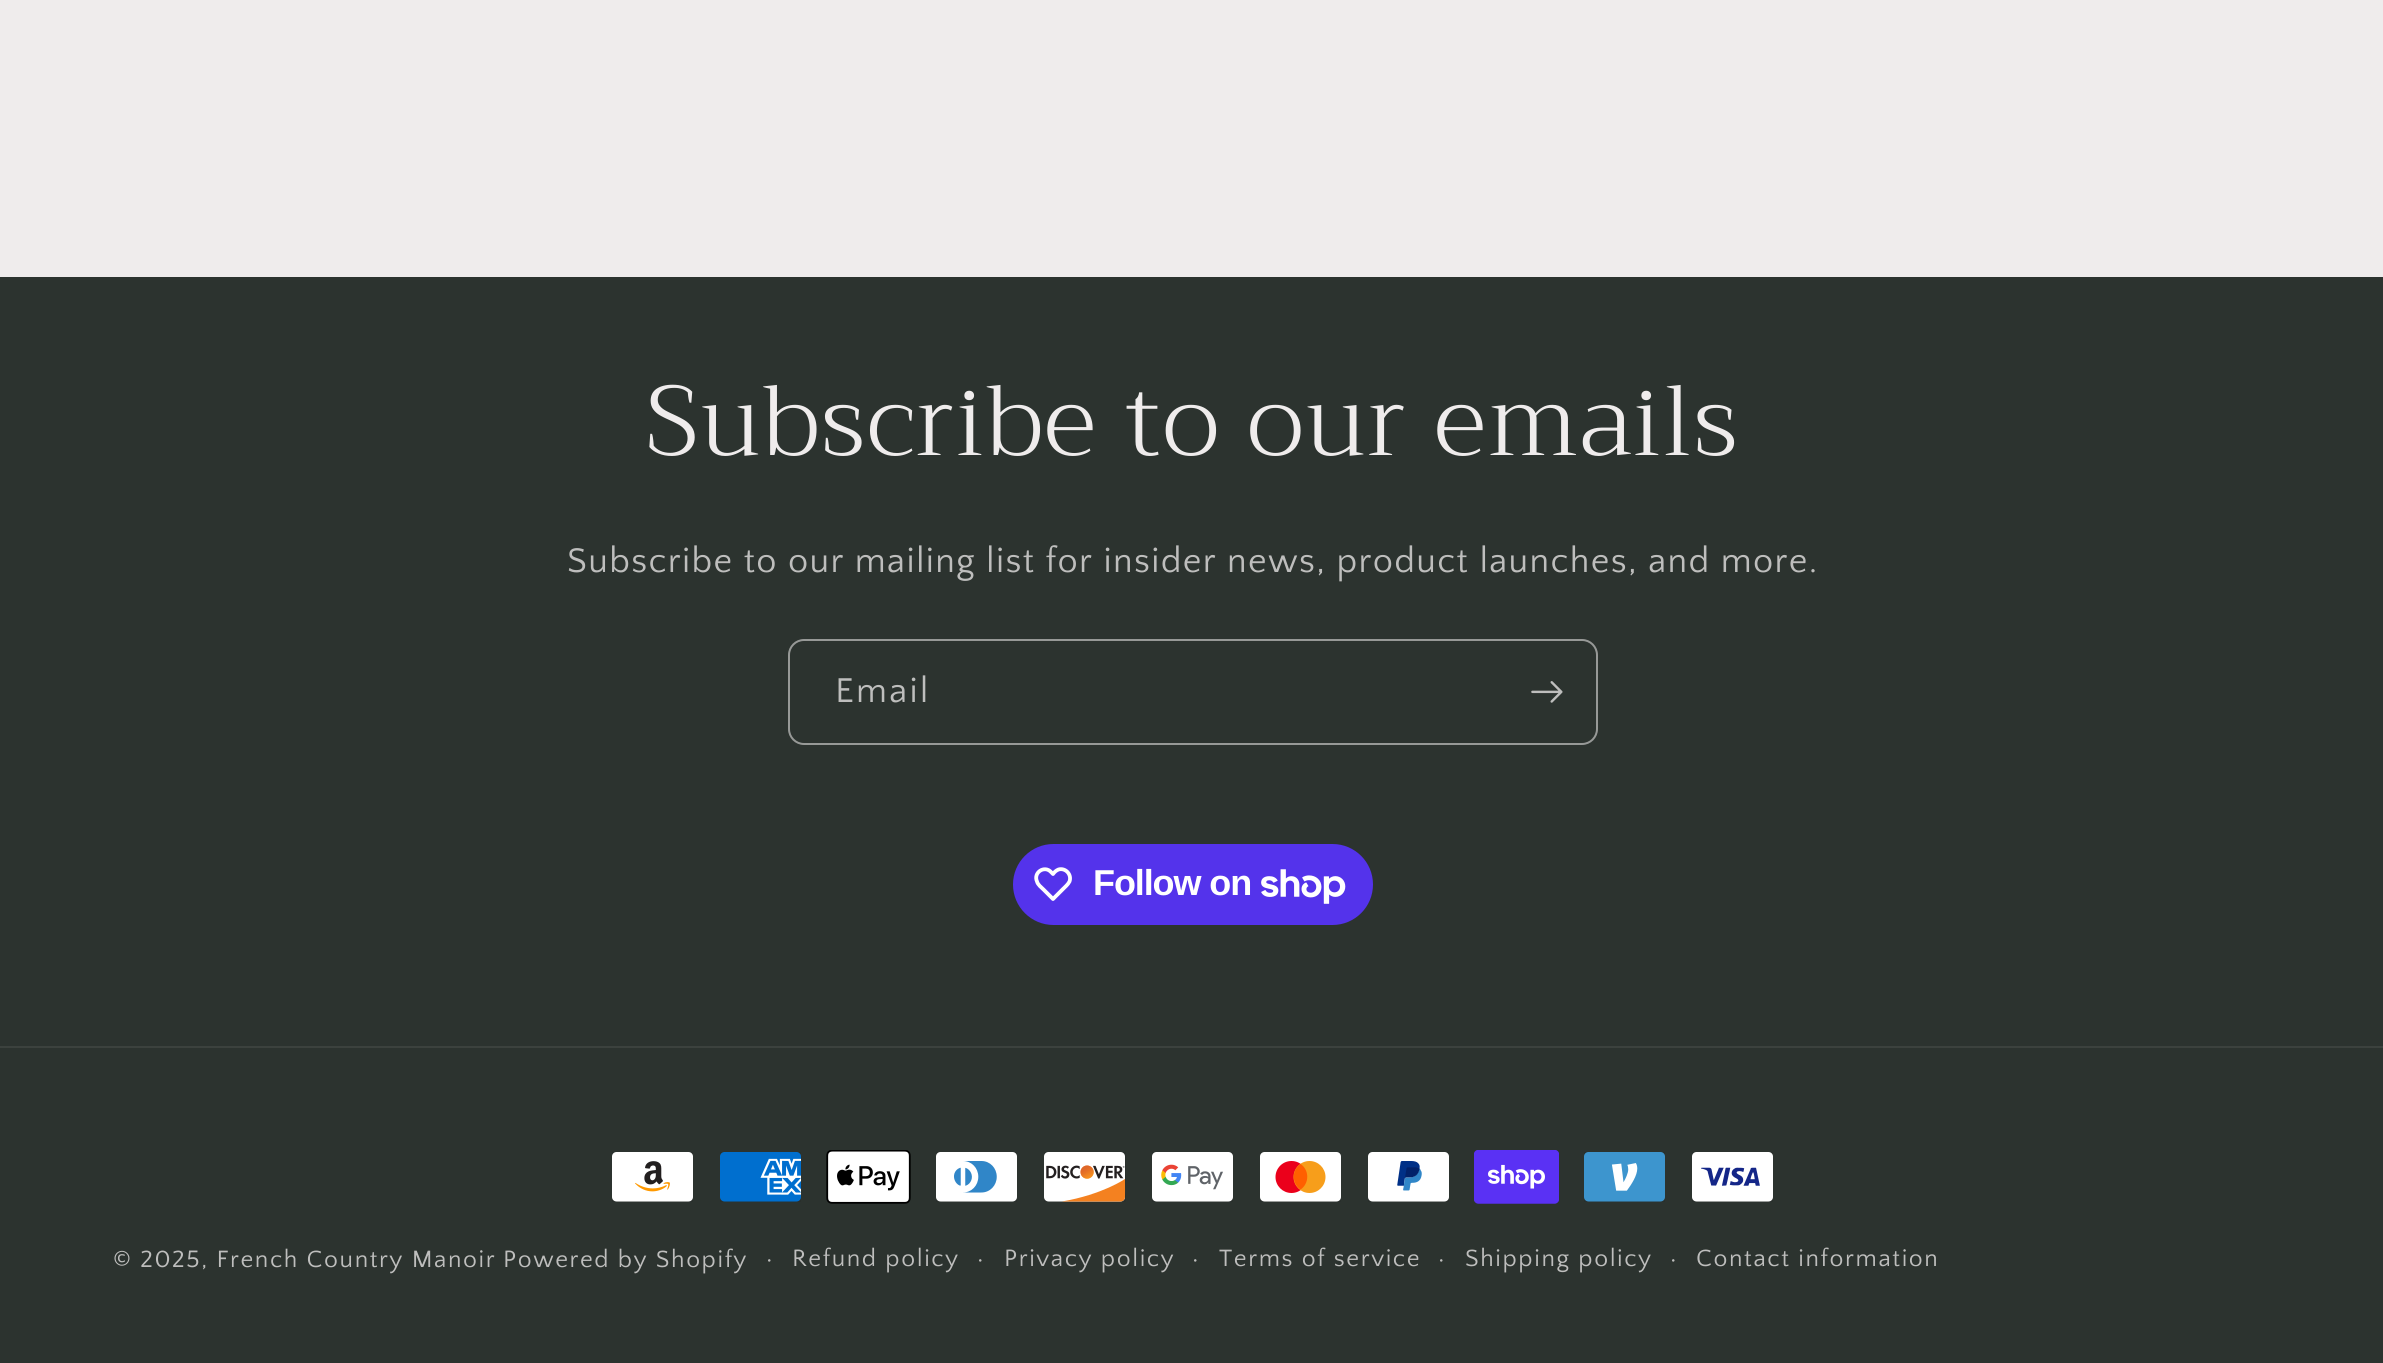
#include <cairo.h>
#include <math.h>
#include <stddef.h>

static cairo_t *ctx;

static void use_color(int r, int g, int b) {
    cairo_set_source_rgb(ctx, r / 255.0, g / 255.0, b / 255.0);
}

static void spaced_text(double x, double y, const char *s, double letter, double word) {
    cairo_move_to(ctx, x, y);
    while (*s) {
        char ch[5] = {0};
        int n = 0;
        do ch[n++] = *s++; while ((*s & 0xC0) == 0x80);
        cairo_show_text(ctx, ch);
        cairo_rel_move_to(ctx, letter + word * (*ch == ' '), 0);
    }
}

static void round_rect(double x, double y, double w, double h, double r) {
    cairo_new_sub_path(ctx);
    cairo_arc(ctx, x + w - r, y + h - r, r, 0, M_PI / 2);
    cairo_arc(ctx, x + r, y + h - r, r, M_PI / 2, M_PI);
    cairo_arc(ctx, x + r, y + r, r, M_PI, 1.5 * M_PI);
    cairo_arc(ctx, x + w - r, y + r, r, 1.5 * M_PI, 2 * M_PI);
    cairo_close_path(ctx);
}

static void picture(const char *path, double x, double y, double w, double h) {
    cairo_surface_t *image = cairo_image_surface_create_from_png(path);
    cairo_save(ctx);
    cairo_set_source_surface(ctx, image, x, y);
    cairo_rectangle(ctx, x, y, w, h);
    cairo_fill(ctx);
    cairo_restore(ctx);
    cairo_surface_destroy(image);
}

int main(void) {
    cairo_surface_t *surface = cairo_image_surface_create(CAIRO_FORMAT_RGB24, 2383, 1363);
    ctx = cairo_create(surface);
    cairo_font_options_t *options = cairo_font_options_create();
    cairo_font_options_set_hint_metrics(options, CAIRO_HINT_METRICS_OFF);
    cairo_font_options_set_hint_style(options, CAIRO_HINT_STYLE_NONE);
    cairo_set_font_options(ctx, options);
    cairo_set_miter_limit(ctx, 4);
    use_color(239, 236, 236);
    cairo_paint(ctx);
    use_color(44, 51, 47);
    cairo_rectangle(ctx, 0, 277, 2383, 1086);
    cairo_fill(ctx);
    cairo_select_font_face(ctx, "Trirong Light", CAIRO_FONT_SLANT_NORMAL, CAIRO_FONT_WEIGHT_NORMAL);
    cairo_set_font_size(ctx, 99);
    use_color(239, 236, 236);
    spaced_text(646, 455, "Subscribe to our emails", 1.5, 0);
    cairo_select_font_face(ctx, "Quattrocento Sans", CAIRO_FONT_SLANT_NORMAL, CAIRO_FONT_WEIGHT_NORMAL);
    cairo_set_font_size(ctx, 36);
    use_color(190, 190, 189);
    spaced_text(567, 572, "Subscribe to our mailing list for insider news, product launches, and more.", 1.35, 0);
    round_rect(789, 640, 808, 104, 15);
    use_color(151, 153, 151);
    cairo_stroke(ctx);
    use_color(190, 190, 189);
    spaced_text(835, 702, "Email", 2.25, 0);
    picture("img1.png", 1531, 681, 32, 22);
    use_color(84, 51, 235);
    round_rect(1013, 844, 360, 81, 40.5);
    cairo_fill(ctx);
    cairo_new_path(ctx);
    cairo_move_to(ctx, 1051, 872);
    cairo_line_to(ctx, 1053, 874);
    cairo_curve_to(ctx, 1054.5, 872, 1056, 870.5, 1058.5, 869.5);
    cairo_curve_to(ctx, 1065.5, 867.5, 1072, 874.5, 1069.5, 881.5);
    cairo_curve_to(ctx, 1068, 884.5, 1065, 887, 1062.5, 889.5);
    cairo_line_to(ctx, 1053, 899);
    cairo_line_to(ctx, 1043.5, 889.5);
    cairo_curve_to(ctx, 1041, 887, 1038, 885, 1037, 881.5);
    cairo_curve_to(ctx, 1033, 872.5, 1044.5, 865, 1051, 872);
    cairo_close_path(ctx);
    use_color(255, 255, 255);
    cairo_set_line_width(ctx, 3.8);
    cairo_set_line_join(ctx, CAIRO_LINE_JOIN_ROUND);
    cairo_stroke(ctx);
    cairo_select_font_face(ctx, "Liberation Sans", CAIRO_FONT_SLANT_NORMAL, CAIRO_FONT_WEIGHT_BOLD);
    spaced_text(1093, 895, "Follow on", -1.1, 0);
    picture("img2.png", 1261, 869, 85, 35);
    use_color(60, 66, 62);
    cairo_rectangle(ctx, 0, 1046, 2383, 2);
    cairo_fill(ctx);
    picture("img3.png", 612, 1152, 81, 50);
    picture("img4.png", 720, 1152, 81, 50);
    picture("img5.png", 826, 1150, 85, 54);
    picture("img6.png", 936, 1152, 81, 50);
    picture("img7.png", 1044, 1152, 82, 50);
    picture("img8.png", 1152, 1152, 81, 50);
    picture("img9.png", 1260, 1152, 81, 50);
    picture("img10.png", 1368, 1152, 81, 50);
    picture("img11.png", 1474, 1150, 85, 54);
    picture("img12.png", 1584, 1152, 81, 50);
    picture("img13.png", 1692, 1152, 81, 50);
    cairo_select_font_face(ctx, "Quattrocento Sans", CAIRO_FONT_SLANT_NORMAL, CAIRO_FONT_WEIGHT_NORMAL);
    cairo_set_font_size(ctx, 24.75);
    use_color(190, 190, 189);
    spaced_text(113, 1267, "© 2025, French Country Manoir", 1.6, 0);
    spaced_text(503, 1267, "Powered by Shopify", 1.6, 0);
    cairo_set_font_size(ctx, 27);
    spaced_text(766, 1267, "·", 1.6, 0);
    cairo_set_font_size(ctx, 24.75);
    spaced_text(792, 1266, "Refund policy", 1.6, 0);
    cairo_set_font_size(ctx, 27);
    spaced_text(977, 1267, "·", 1.6, 0);
    cairo_set_font_size(ctx, 24.75);
    spaced_text(1004, 1266, "Privacy policy", 1.6, 0);
    cairo_set_font_size(ctx, 27);
    spaced_text(1192, 1267, "·", 1.6, 0);
    cairo_set_font_size(ctx, 24.75);
    spaced_text(1219, 1266, "Terms of service", 1.6, 0);
    cairo_set_font_size(ctx, 27);
    spaced_text(1438, 1267, "·", 1.6, 0);
    cairo_set_font_size(ctx, 24.75);
    spaced_text(1465, 1266, "Shipping policy", 1.6, 0);
    cairo_set_font_size(ctx, 27);
    spaced_text(1670, 1267, "·", 1.6, 0);
    cairo_set_font_size(ctx, 24.75);
    spaced_text(1696, 1266, "Contact information", 1.6, 0);
    cairo_surface_write_to_png(surface, "result.png");
    cairo_font_options_destroy(options);
    cairo_destroy(ctx);
    cairo_surface_destroy(surface);
    return 0;
}
